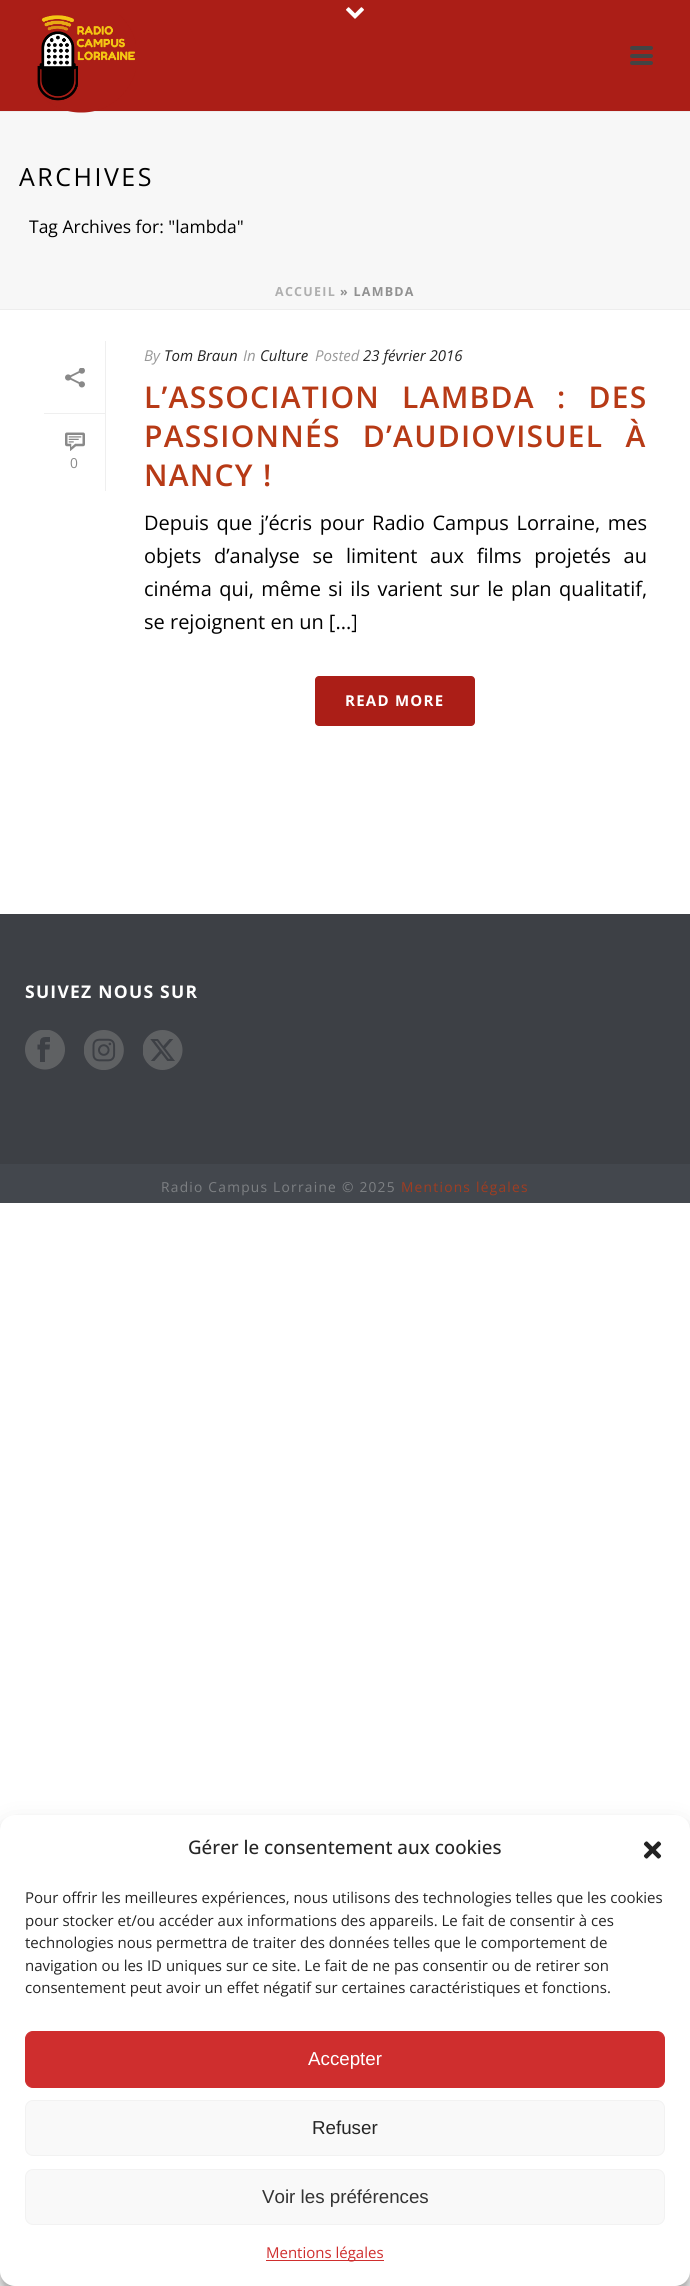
#include <cairo.h>
#include <math.h>
#include <stddef.h>

static cairo_t *ctx;

static void use_color(int r, int g, int b) {
    cairo_set_source_rgb(ctx, r / 255.0, g / 255.0, b / 255.0);
}

static void spaced_text(double x, double y, const char *s, double letter, double word) {
    cairo_move_to(ctx, x, y);
    while (*s) {
        char ch[5] = {0};
        int n = 0;
        do ch[n++] = *s++; while ((*s & 0xC0) == 0x80);
        cairo_show_text(ctx, ch);
        cairo_rel_move_to(ctx, letter + word * (*ch == ' '), 0);
    }
}

static void round_rect(double x, double y, double w, double h, double r) {
    cairo_new_sub_path(ctx);
    cairo_arc(ctx, x + w - r, y + h - r, r, 0, M_PI / 2);
    cairo_arc(ctx, x + r, y + h - r, r, M_PI / 2, M_PI);
    cairo_arc(ctx, x + r, y + r, r, M_PI, 1.5 * M_PI);
    cairo_arc(ctx, x + w - r, y + r, r, 1.5 * M_PI, 2 * M_PI);
    cairo_close_path(ctx);
}

static void shadow(double x, double y, double w, double h, double r, double blur, double alpha) {
    cairo_push_group_with_content(ctx, CAIRO_CONTENT_ALPHA);
    cairo_set_operator(ctx, CAIRO_OPERATOR_SOURCE);
    for (int i = 15; i >= -15 && fmin(w, h) + blur * i / 3 > 0; i -= 2) {
        double e = blur * i / 6;
        cairo_set_source_rgba(ctx, 0, 0, 0, alpha * erfc((i - 1) / 8.5) / 2);
        round_rect(x - e, y - e, w + 2 * e, h + 2 * e, fmax(0, fmin(r + e + blur * .6, fmin(w, h) / 2 + e)));
        cairo_fill(ctx);
    }
    cairo_pattern_t *soft = cairo_pop_group(ctx);
    cairo_mask(ctx, soft);
    cairo_pattern_destroy(soft);
}

static void picture(const char *path, double x, double y, double w, double h) {
    cairo_surface_t *image = cairo_image_surface_create_from_png(path);
    cairo_save(ctx);
    cairo_set_source_surface(ctx, image, x, y);
    cairo_rectangle(ctx, x, y, w, h);
    cairo_fill(ctx);
    cairo_restore(ctx);
    cairo_surface_destroy(image);
}

int main(void) {
    cairo_surface_t *surface = cairo_image_surface_create(CAIRO_FORMAT_RGB24, 690, 2286);
    ctx = cairo_create(surface);
    cairo_font_options_t *options = cairo_font_options_create();
    cairo_font_options_set_hint_metrics(options, CAIRO_HINT_METRICS_OFF);
    cairo_font_options_set_hint_style(options, CAIRO_HINT_STYLE_NONE);
    cairo_set_font_options(ctx, options);
    cairo_set_miter_limit(ctx, 4);
    use_color(255, 255, 255);
    cairo_paint(ctx);
    use_color(247, 247, 247);
    cairo_rectangle(ctx, 0, 112, 690, 197);
    cairo_fill(ctx);
    use_color(237, 237, 237);
    cairo_rectangle(ctx, 0, 309, 690, 1);
    cairo_fill(ctx);
    cairo_rectangle(ctx, 0, 111, 690, 1);
    cairo_fill(ctx);
    use_color(171, 30, 23);
    cairo_rectangle(ctx, 0, 0, 690, 111);
    cairo_fill(ctx);
    picture("img1.png", 346, 7, 18, 12);
    picture("img2.png", 37, 15, 99, 98);
    use_color(68, 68, 68);
    round_rect(630, 46, 23, 4, 2);
    cairo_fill(ctx);
    round_rect(630, 54, 23, 4, 2);
    cairo_fill(ctx);
    round_rect(630, 61, 23, 4, 2);
    cairo_fill(ctx);
    cairo_select_font_face(ctx, "Open Sans", CAIRO_FONT_SLANT_NORMAL, CAIRO_FONT_WEIGHT_NORMAL);
    cairo_set_font_size(ctx, 25);
    use_color(0, 0, 0);
    spaced_text(19, 186, "ARCHIVES", 2.5, 0);
    cairo_set_font_size(ctx, 17.5);
    cairo_move_to(ctx, 29, 233);
    cairo_show_text(ctx, "Tag Archives for: \"lambda\"");
    cairo_select_font_face(ctx, "Open Sans", CAIRO_FONT_SLANT_NORMAL, CAIRO_FONT_WEIGHT_BOLD);
    cairo_set_font_size(ctx, 12.5);
    use_color(175, 175, 175);
    spaced_text(275, 296, "ACCUEIL", 1.25, 0);
    use_color(145, 145, 145);
    spaced_text(340, 296, "» LAMBDA", 1.25, 0);
    use_color(239, 239, 239);
    cairo_rectangle(ctx, 105, 341, 1, 150);
    cairo_fill(ctx);
    cairo_rectangle(ctx, 44, 413, 61, 1);
    cairo_fill(ctx);
    picture("img3.png", 65, 368, 20, 20);
    picture("img4.png", 65, 432, 20, 19);
    cairo_select_font_face(ctx, "Open Sans", CAIRO_FONT_SLANT_NORMAL, CAIRO_FONT_WEIGHT_NORMAL);
    cairo_set_font_size(ctx, 13.75);
    use_color(137, 137, 137);
    cairo_move_to(ctx, 70, 468);
    cairo_show_text(ctx, "0");
    cairo_select_font_face(ctx, "Open Sans", CAIRO_FONT_SLANT_ITALIC, CAIRO_FONT_WEIGHT_NORMAL);
    cairo_set_font_size(ctx, 15);
    use_color(153, 153, 153);
    cairo_move_to(ctx, 144, 361);
    cairo_show_text(ctx, "By");
    use_color(37, 37, 37);
    cairo_move_to(ctx, 164, 361);
    cairo_show_text(ctx, "Tom Braun");
    use_color(153, 153, 153);
    cairo_move_to(ctx, 243, 361);
    cairo_show_text(ctx, "In");
    use_color(37, 37, 37);
    cairo_move_to(ctx, 260, 361);
    cairo_show_text(ctx, "Culture");
    use_color(153, 153, 153);
    cairo_move_to(ctx, 315, 361);
    cairo_show_text(ctx, "Posted");
    use_color(37, 37, 37);
    cairo_move_to(ctx, 363, 361);
    cairo_show_text(ctx, "23 février 2016");
    cairo_select_font_face(ctx, "Open Sans SemiBold", CAIRO_FONT_SLANT_NORMAL, CAIRO_FONT_WEIGHT_NORMAL);
    cairo_set_font_size(ctx, 30);
    use_color(183, 58, 22);
    spaced_text(144, 408, "L’ASSOCIATION LAMBDA : DES", 1.25, 13);
    spaced_text(144, 447, "PASSIONNÉS D’AUDIOVISUEL À", 1.25, 13);
    spaced_text(144, 486, "NANCY !", 1.25, 0);
    cairo_select_font_face(ctx, "Open Sans", CAIRO_FONT_SLANT_NORMAL, CAIRO_FONT_WEIGHT_NORMAL);
    cairo_set_font_size(ctx, 20);
    use_color(0, 0, 0);
    spaced_text(144, 530, "Depuis que j’écris pour Radio Campus Lorraine, mes", 0, 2.5);
    spaced_text(144, 563, "objets d’analyse se limitent aux films projetés au", 0, 7.5);
    spaced_text(144, 596, "cinéma qui, même si ils varient sur le plan qualitatif,", 0, 2.25);
    cairo_move_to(ctx, 144, 629);
    cairo_show_text(ctx, "se rejoignent en un [...]");
    use_color(171, 30, 23);
    round_rect(315, 676, 160, 50, 4);
    cairo_fill(ctx);
    cairo_select_font_face(ctx, "Open Sans", CAIRO_FONT_SLANT_NORMAL, CAIRO_FONT_WEIGHT_BOLD);
    cairo_set_font_size(ctx, 15);
    use_color(255, 255, 255);
    spaced_text(345, 706, "READ MORE", 1.25, 0);
    use_color(61, 64, 69);
    cairo_rectangle(ctx, 0, 914, 690, 250);
    cairo_fill(ctx);
    cairo_set_font_size(ctx, 17.5);
    use_color(255, 255, 255);
    spaced_text(25, 998, "SUIVEZ NOUS SUR", 1.25, 0);
    picture("img5.png", 25, 1030, 40, 40);
    picture("img6.png", 84, 1030, 40, 40);
    picture("img7.png", 143, 1030, 40, 40);
    use_color(67, 71, 77);
    cairo_rectangle(ctx, 0, 1164, 690, 39);
    cairo_fill(ctx);
    cairo_select_font_face(ctx, "Open Sans", CAIRO_FONT_SLANT_NORMAL, CAIRO_FONT_WEIGHT_NORMAL);
    cairo_set_font_size(ctx, 13.75);
    use_color(125, 128, 131);
    spaced_text(161, 1192, "Radio Campus Lorraine © 2025", 1.25, 0);
    use_color(160, 61, 33);
    spaced_text(401, 1192, "Mentions légales", 1.25, 0);
    use_color(0, 0, 0);
    shadow(0, 1823, 690, 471, 15, 4, 0.23);
    shadow(0, 1828, 690, 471, 15, 12.5, 0.19);
    use_color(255, 255, 255);
    round_rect(0, 1815, 690, 471, 15);
    cairo_fill(ctx);
    cairo_select_font_face(ctx, "Open Sans Medium", CAIRO_FONT_SLANT_NORMAL, CAIRO_FONT_WEIGHT_NORMAL);
    cairo_set_font_size(ctx, 18.75);
    use_color(37, 37, 37);
    cairo_move_to(ctx, 188, 1854);
    cairo_show_text(ctx, "Gérer le consentement aux cookies");
    picture("img8.png", 643, 1841, 19, 18);
    cairo_select_font_face(ctx, "Open Sans", CAIRO_FONT_SLANT_NORMAL, CAIRO_FONT_WEIGHT_NORMAL);
    cairo_set_font_size(ctx, 15);
    cairo_move_to(ctx, 25, 1903);
    cairo_show_text(ctx, "Pour offrir les meilleures expériences, nous utilisons des technologies telles que les cookies");
    cairo_move_to(ctx, 25, 1926);
    cairo_show_text(ctx, "pour stocker et/ou accéder aux informations des appareils. Le fait de consentir à ces");
    cairo_move_to(ctx, 25, 1948);
    cairo_show_text(ctx, "technologies nous permettra de traiter des données telles que le comportement de");
    cairo_move_to(ctx, 25, 1971);
    cairo_show_text(ctx, "navigation ou les ID uniques sur ce site. Le fait de ne pas consentir ou de retirer son");
    cairo_move_to(ctx, 25, 1993);
    cairo_show_text(ctx, "consentement peut avoir un effet négatif sur certaines caractéristiques et fonctions.");
    use_color(207, 46, 46);
    round_rect(25.5, 2031.5, 639, 56, 7.5);
    cairo_fill_preserve(ctx);
    cairo_set_line_width(ctx, 1);
    cairo_stroke(ctx);
    cairo_select_font_face(ctx, "Liberation Sans", CAIRO_FONT_SLANT_NORMAL, CAIRO_FONT_WEIGHT_NORMAL);
    cairo_set_font_size(ctx, 18.75);
    use_color(255, 255, 255);
    cairo_move_to(ctx, 308, 2065);
    cairo_show_text(ctx, "Accepter");
    use_color(249, 249, 249);
    round_rect(25.5, 2100.5, 639, 55, 7.5);
    cairo_fill_preserve(ctx);
    use_color(242, 242, 242);
    cairo_stroke(ctx);
    use_color(37, 37, 37);
    cairo_move_to(ctx, 312, 2134);
    cairo_show_text(ctx, "Refuser");
    use_color(249, 249, 249);
    round_rect(25.5, 2169.5, 639, 55, 7.5);
    cairo_fill_preserve(ctx);
    use_color(242, 242, 242);
    cairo_stroke(ctx);
    use_color(51, 51, 51);
    cairo_move_to(ctx, 262, 2203);
    cairo_show_text(ctx, "Voir les préférences");
    use_color(207, 46, 46);
    cairo_rectangle(ctx, 266, 2260, 118, 1);
    cairo_fill(ctx);
    cairo_select_font_face(ctx, "Open Sans", CAIRO_FONT_SLANT_NORMAL, CAIRO_FONT_WEIGHT_NORMAL);
    cairo_set_font_size(ctx, 15);
    cairo_move_to(ctx, 266, 2258);
    cairo_show_text(ctx, "Mentions légales");
    cairo_surface_write_to_png(surface, "result.png");
    cairo_font_options_destroy(options);
    cairo_destroy(ctx);
    cairo_surface_destroy(surface);
    return 0;
}
